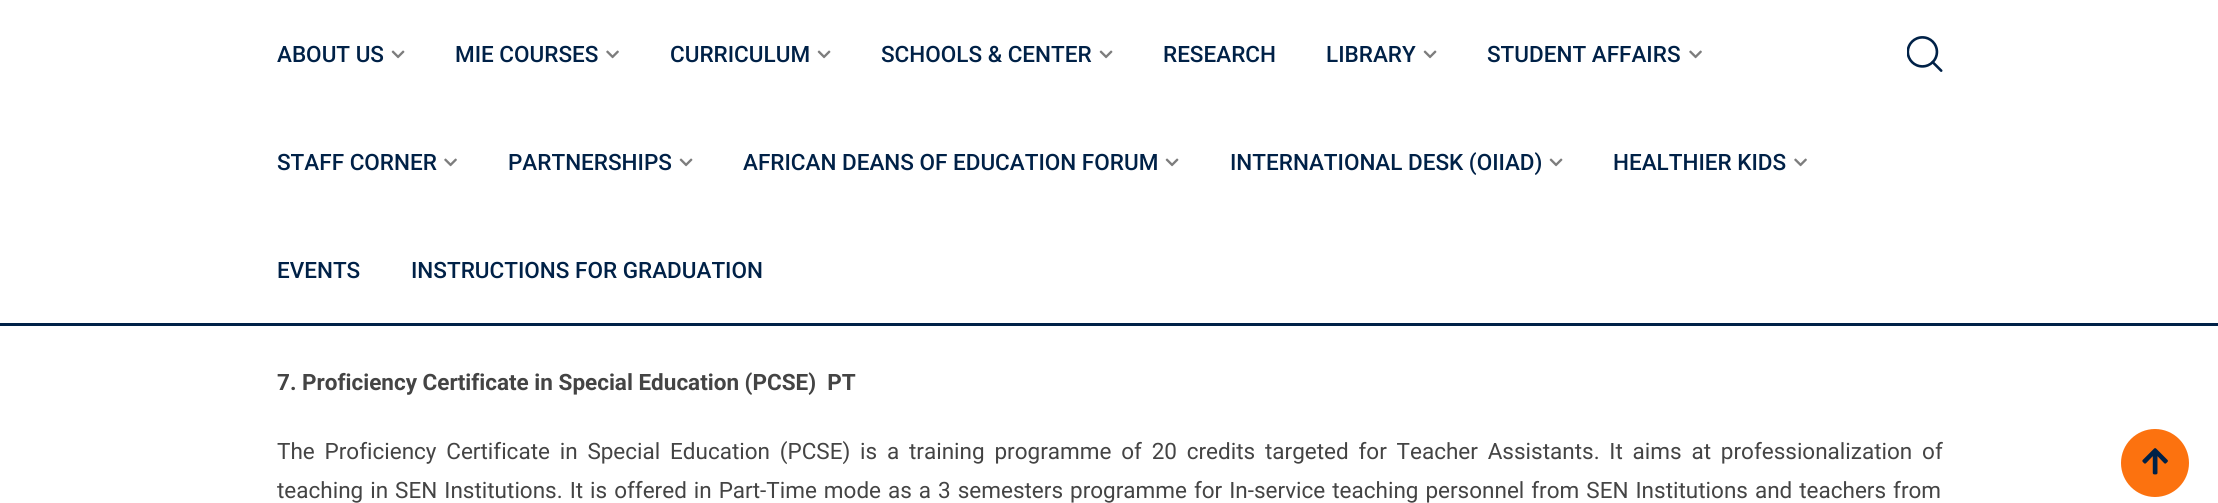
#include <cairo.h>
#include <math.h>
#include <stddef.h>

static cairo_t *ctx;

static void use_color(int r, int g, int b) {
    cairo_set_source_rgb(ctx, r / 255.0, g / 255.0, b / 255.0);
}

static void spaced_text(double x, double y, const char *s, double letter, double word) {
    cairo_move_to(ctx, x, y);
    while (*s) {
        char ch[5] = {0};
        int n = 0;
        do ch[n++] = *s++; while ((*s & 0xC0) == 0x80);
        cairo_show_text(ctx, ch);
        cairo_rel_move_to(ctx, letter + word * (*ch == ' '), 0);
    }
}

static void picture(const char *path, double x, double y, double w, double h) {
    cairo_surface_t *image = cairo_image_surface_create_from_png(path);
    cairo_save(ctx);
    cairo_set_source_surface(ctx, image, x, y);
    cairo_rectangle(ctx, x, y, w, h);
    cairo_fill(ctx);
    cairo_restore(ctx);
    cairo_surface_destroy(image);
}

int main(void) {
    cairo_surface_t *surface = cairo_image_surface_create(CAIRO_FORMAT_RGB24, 2218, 503);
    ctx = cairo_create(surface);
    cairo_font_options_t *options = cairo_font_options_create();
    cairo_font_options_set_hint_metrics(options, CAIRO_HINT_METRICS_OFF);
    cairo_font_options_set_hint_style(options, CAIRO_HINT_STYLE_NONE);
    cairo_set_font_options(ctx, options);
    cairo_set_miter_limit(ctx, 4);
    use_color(255, 255, 255);
    cairo_paint(ctx);
    use_color(0, 33, 71);
    cairo_rectangle(ctx, 0, 323, 2218, 3);
    cairo_fill(ctx);
    cairo_select_font_face(ctx, "Roboto Medium", CAIRO_FONT_SLANT_NORMAL, CAIRO_FONT_WEIGHT_NORMAL);
    cairo_set_font_size(ctx, 22.5);
    cairo_move_to(ctx, 277, 62);
    cairo_show_text(ctx, "ABOUT US");
    picture("img1.png", 391, 50, 14, 9);
    cairo_move_to(ctx, 455, 62);
    cairo_show_text(ctx, "MIE COURSES");
    picture("img2.png", 606, 50, 13, 9);
    cairo_move_to(ctx, 670, 62);
    cairo_show_text(ctx, "CURRICULUM");
    picture("img1.png", 817, 50, 14, 9);
    cairo_move_to(ctx, 881, 62);
    cairo_show_text(ctx, "SCHOOLS & CENTER");
    picture("img1.png", 1099, 50, 14, 9);
    cairo_move_to(ctx, 1163, 62);
    cairo_show_text(ctx, "RESEARCH");
    cairo_move_to(ctx, 1326, 62);
    cairo_show_text(ctx, "LIBRARY");
    picture("img1.png", 1423, 50, 14, 9);
    cairo_move_to(ctx, 1487, 62);
    cairo_show_text(ctx, "STUDENT AFFAIRS");
    picture("img2.png", 1689, 50, 13, 9);
    cairo_move_to(ctx, 277, 170);
    cairo_show_text(ctx, "STAFF CORNER");
    picture("img2.png", 444, 158, 13, 9);
    cairo_move_to(ctx, 508, 170);
    cairo_show_text(ctx, "PARTNERSHIPS");
    picture("img1.png", 679, 158, 14, 9);
    cairo_move_to(ctx, 743, 170);
    cairo_show_text(ctx, "AFRICAN DEANS OF EDUCATION FORUM");
    picture("img1.png", 1165, 158, 14, 9);
    cairo_move_to(ctx, 1230, 170);
    cairo_show_text(ctx, "INTERNATIONAL DESK (OIIAD)");
    picture("img1.png", 1549, 158, 14, 9);
    cairo_move_to(ctx, 1613, 170);
    cairo_show_text(ctx, "HEALTHIER KIDS");
    picture("img2.png", 1794, 158, 13, 9);
    cairo_move_to(ctx, 277, 278);
    cairo_show_text(ctx, "EVENTS");
    cairo_move_to(ctx, 411, 278);
    cairo_show_text(ctx, "INSTRUCTIONS FOR GRADUATION");
    picture("img3.png", 1907, 36, 36, 36);
    cairo_select_font_face(ctx, "Roboto", CAIRO_FONT_SLANT_NORMAL, CAIRO_FONT_WEIGHT_BOLD);
    use_color(68, 68, 68);
    cairo_move_to(ctx, 277, 390);
    cairo_show_text(ctx, "7. Proficiency Certificate in Special Education (PCSE)  PT");
    cairo_select_font_face(ctx, "Roboto", CAIRO_FONT_SLANT_NORMAL, CAIRO_FONT_WEIGHT_NORMAL);
    spaced_text(277, 459, "The Proficiency Certificate in Special Education (PCSE) is a training programme of 20 credits targeted for Teacher Assistants. It aims at professionalization of", 0, 4.2);
    spaced_text(277, 498, "teaching in SEN Institutions. It is offered in Part-Time mode as a 3 semesters programme for In-service teaching personnel from SEN Institutions and teachers from", 0, 1.4);
    use_color(252, 114, 15);
    cairo_new_path(ctx);
    cairo_arc(ctx, 2155, 463, 34, 0, 2 * M_PI);
    cairo_fill(ctx);
    picture("img4.png", 2142, 448, 26, 27);
    cairo_surface_write_to_png(surface, "result.png");
    cairo_font_options_destroy(options);
    cairo_destroy(ctx);
    cairo_surface_destroy(surface);
    return 0;
}
